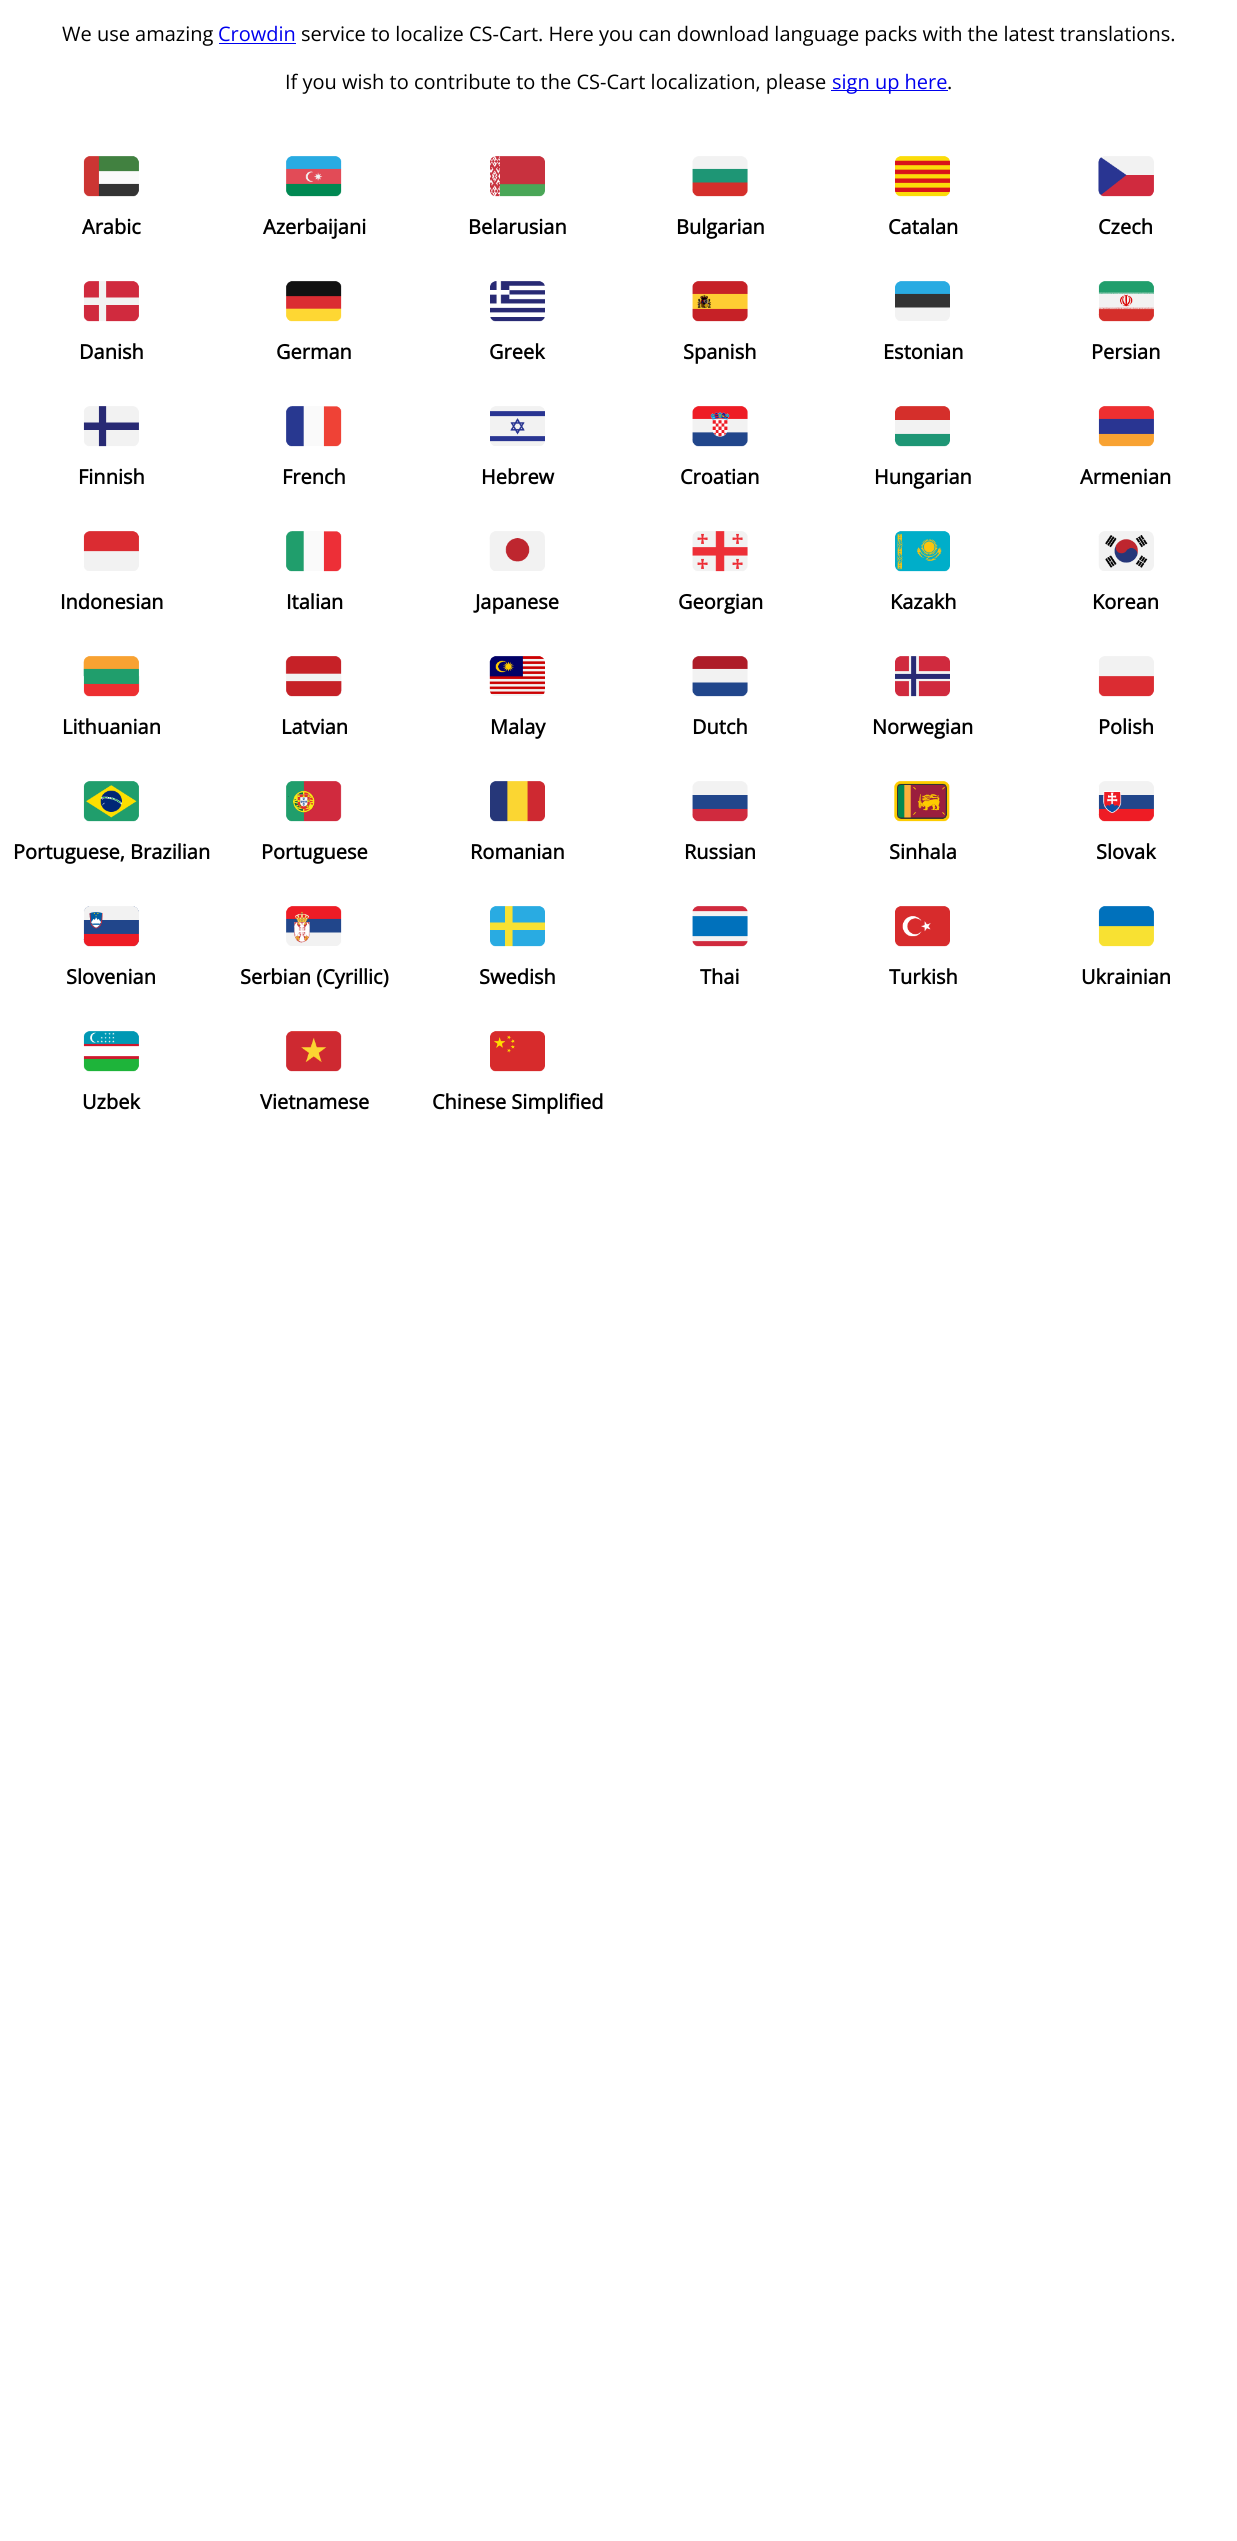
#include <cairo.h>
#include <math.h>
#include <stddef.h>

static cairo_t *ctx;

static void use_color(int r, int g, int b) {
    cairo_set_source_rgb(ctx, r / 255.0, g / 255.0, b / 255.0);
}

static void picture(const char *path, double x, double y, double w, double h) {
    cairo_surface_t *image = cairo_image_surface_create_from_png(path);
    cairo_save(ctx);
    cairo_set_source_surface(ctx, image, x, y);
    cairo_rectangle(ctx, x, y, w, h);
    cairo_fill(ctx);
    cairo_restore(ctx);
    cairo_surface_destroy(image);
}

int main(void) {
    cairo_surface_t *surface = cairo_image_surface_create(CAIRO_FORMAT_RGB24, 1237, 2541);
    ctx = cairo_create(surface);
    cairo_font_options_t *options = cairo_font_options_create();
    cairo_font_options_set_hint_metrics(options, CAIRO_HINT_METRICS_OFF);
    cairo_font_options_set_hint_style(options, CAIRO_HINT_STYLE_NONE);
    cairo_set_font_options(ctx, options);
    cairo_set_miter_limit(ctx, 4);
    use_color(255, 255, 255);
    cairo_paint(ctx);
    cairo_select_font_face(ctx, "Open Sans", CAIRO_FONT_SLANT_NORMAL, CAIRO_FONT_WEIGHT_NORMAL);
    cairo_set_font_size(ctx, 20);
    use_color(0, 0, 0);
    cairo_move_to(ctx, 62, 41);
    cairo_show_text(ctx, "We use amazing");
    use_color(0, 0, 238);
    cairo_move_to(ctx, 218, 41);
    cairo_show_text(ctx, "Crowdin");
    cairo_rectangle(ctx, 219, 43, 77, 1);
    cairo_fill(ctx);
    use_color(0, 0, 0);
    cairo_move_to(ctx, 301, 41);
    cairo_show_text(ctx, "service to localize CS-Cart. Here you can download language packs with the latest translations.");
    cairo_move_to(ctx, 285, 89);
    cairo_show_text(ctx, "If you wish to contribute to the CS-Cart localization, please");
    use_color(0, 0, 238);
    cairo_rectangle(ctx, 831, 90, 117, 1);
    cairo_fill(ctx);
    cairo_move_to(ctx, 832, 89);
    cairo_show_text(ctx, "sign up here");
    use_color(0, 0, 0);
    cairo_move_to(ctx, 947, 89);
    cairo_show_text(ctx, ".");
    picture("img1.png", 83, 156, 56, 41);
    cairo_select_font_face(ctx, "Open Sans", CAIRO_FONT_SLANT_NORMAL, CAIRO_FONT_WEIGHT_BOLD);
    cairo_move_to(ctx, 82, 234);
    cairo_show_text(ctx, "Arabic");
    picture("img2.png", 286, 156, 56, 41);
    cairo_move_to(ctx, 263, 234);
    cairo_show_text(ctx, "Azerbaijani");
    picture("img3.png", 490, 156, 55, 41);
    cairo_move_to(ctx, 468, 234);
    cairo_show_text(ctx, "Belarusian");
    picture("img4.png", 692, 156, 56, 41);
    cairo_move_to(ctx, 676, 234);
    cairo_show_text(ctx, "Bulgarian");
    picture("img5.png", 895, 156, 55, 41);
    cairo_move_to(ctx, 888, 234);
    cairo_show_text(ctx, "Catalan");
    picture("img6.png", 1098, 156, 56, 41);
    cairo_move_to(ctx, 1098, 234);
    cairo_show_text(ctx, "Czech");
    picture("img7.png", 83, 281, 56, 41);
    cairo_move_to(ctx, 79, 359);
    cairo_show_text(ctx, "Danish");
    picture("img8.png", 286, 281, 56, 41);
    cairo_move_to(ctx, 276, 359);
    cairo_show_text(ctx, "German");
    picture("img9.png", 490, 281, 55, 41);
    cairo_move_to(ctx, 489, 359);
    cairo_show_text(ctx, "Greek");
    picture("img10.png", 692, 281, 56, 41);
    cairo_move_to(ctx, 683, 359);
    cairo_show_text(ctx, "Spanish");
    picture("img11.png", 895, 281, 55, 40);
    cairo_move_to(ctx, 883, 359);
    cairo_show_text(ctx, "Estonian");
    picture("img12.png", 1098, 281, 56, 41);
    cairo_move_to(ctx, 1091, 359);
    cairo_show_text(ctx, "Persian");
    picture("img13.png", 83, 406, 56, 41);
    cairo_move_to(ctx, 78, 484);
    cairo_show_text(ctx, "Finnish");
    picture("img14.png", 286, 406, 56, 41);
    cairo_move_to(ctx, 282, 484);
    cairo_show_text(ctx, "French");
    picture("img15.png", 490, 406, 55, 40);
    cairo_move_to(ctx, 481, 484);
    cairo_show_text(ctx, "Hebrew");
    picture("img16.png", 692, 406, 56, 41);
    cairo_move_to(ctx, 680, 484);
    cairo_show_text(ctx, "Croatian");
    picture("img17.png", 894, 406, 56, 41);
    cairo_move_to(ctx, 874, 484);
    cairo_show_text(ctx, "Hungarian");
    picture("img18.png", 1098, 406, 56, 41);
    cairo_move_to(ctx, 1080, 484);
    cairo_show_text(ctx, "Armenian");
    picture("img19.png", 83, 531, 56, 40);
    cairo_move_to(ctx, 60, 609);
    cairo_show_text(ctx, "Indonesian");
    picture("img20.png", 286, 531, 56, 41);
    cairo_move_to(ctx, 286, 609);
    cairo_show_text(ctx, "Italian");
    picture("img21.png", 489, 531, 56, 40);
    cairo_move_to(ctx, 475, 609);
    cairo_show_text(ctx, "Japanese");
    picture("img22.png", 692, 531, 56, 41);
    cairo_move_to(ctx, 678, 609);
    cairo_show_text(ctx, "Georgian");
    picture("img23.png", 895, 531, 55, 41);
    cairo_move_to(ctx, 890, 609);
    cairo_show_text(ctx, "Kazakh");
    picture("img24.png", 1098, 531, 56, 40);
    cairo_move_to(ctx, 1092, 609);
    cairo_show_text(ctx, "Korean");
    picture("img25.png", 83, 656, 57, 41);
    cairo_move_to(ctx, 62, 734);
    cairo_show_text(ctx, "Lithuanian");
    picture("img26.png", 285, 656, 57, 41);
    cairo_move_to(ctx, 281, 734);
    cairo_show_text(ctx, "Latvian");
    picture("img27.png", 489, 656, 56, 40);
    cairo_move_to(ctx, 490, 734);
    cairo_show_text(ctx, "Malay");
    picture("img28.png", 692, 656, 56, 41);
    cairo_move_to(ctx, 692, 734);
    cairo_show_text(ctx, "Dutch");
    picture("img29.png", 895, 656, 55, 41);
    cairo_move_to(ctx, 872, 734);
    cairo_show_text(ctx, "Norwegian");
    picture("img30.png", 1098, 656, 56, 41);
    cairo_move_to(ctx, 1098, 734);
    cairo_show_text(ctx, "Polish");
    picture("img31.png", 83, 781, 56, 41);
    cairo_move_to(ctx, 13, 859);
    cairo_show_text(ctx, "Portuguese, Brazilian");
    picture("img32.png", 286, 781, 56, 41);
    cairo_move_to(ctx, 261, 859);
    cairo_show_text(ctx, "Portuguese");
    picture("img33.png", 490, 781, 55, 41);
    cairo_move_to(ctx, 470, 859);
    cairo_show_text(ctx, "Romanian");
    picture("img34.png", 692, 781, 56, 41);
    cairo_move_to(ctx, 684, 859);
    cairo_show_text(ctx, "Russian");
    picture("img35.png", 894, 781, 56, 41);
    cairo_move_to(ctx, 889, 859);
    cairo_show_text(ctx, "Sinhala");
    picture("img36.png", 1098, 781, 56, 41);
    cairo_move_to(ctx, 1096, 859);
    cairo_show_text(ctx, "Slovak");
    picture("img37.png", 83, 906, 56, 41);
    cairo_move_to(ctx, 66, 984);
    cairo_show_text(ctx, "Slovenian");
    picture("img38.png", 286, 906, 56, 40);
    cairo_move_to(ctx, 240, 984);
    cairo_show_text(ctx, "Serbian (Cyrillic)");
    picture("img39.png", 490, 906, 55, 41);
    cairo_move_to(ctx, 479, 984);
    cairo_show_text(ctx, "Swedish");
    picture("img40.png", 692, 906, 56, 41);
    cairo_move_to(ctx, 700, 984);
    cairo_show_text(ctx, "Thai");
    picture("img41.png", 895, 906, 55, 41);
    cairo_move_to(ctx, 889, 984);
    cairo_show_text(ctx, "Turkish");
    picture("img42.png", 1098, 906, 56, 41);
    cairo_move_to(ctx, 1081, 984);
    cairo_show_text(ctx, "Ukrainian");
    picture("img43.png", 83, 1031, 56, 41);
    cairo_move_to(ctx, 82, 1109);
    cairo_show_text(ctx, "Uzbek");
    picture("img44.png", 286, 1031, 56, 41);
    cairo_move_to(ctx, 260, 1109);
    cairo_show_text(ctx, "Vietnamese");
    picture("img45.png", 490, 1031, 55, 41);
    cairo_move_to(ctx, 432, 1109);
    cairo_show_text(ctx, "Chinese Simplified");
    cairo_surface_write_to_png(surface, "result.png");
    cairo_font_options_destroy(options);
    cairo_destroy(ctx);
    cairo_surface_destroy(surface);
    return 0;
}
